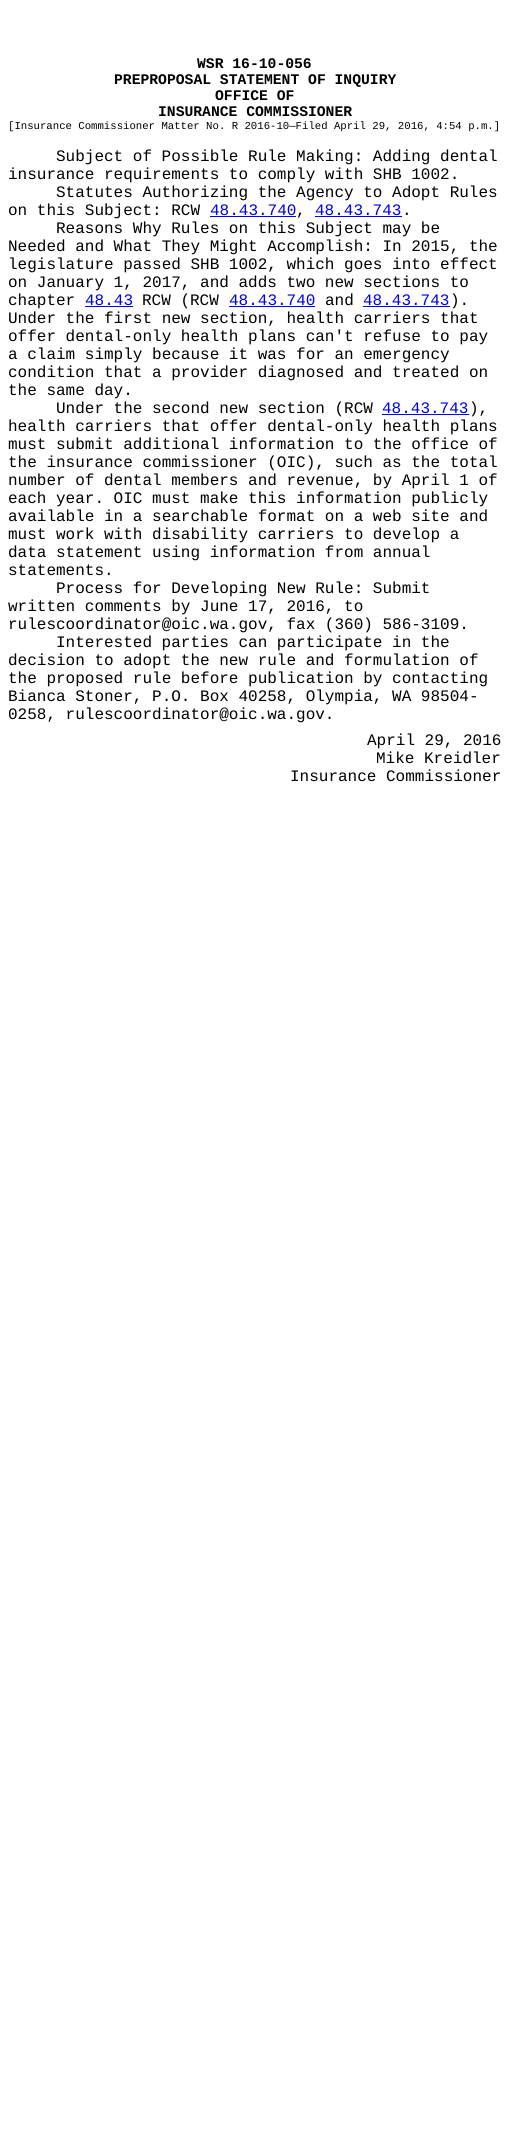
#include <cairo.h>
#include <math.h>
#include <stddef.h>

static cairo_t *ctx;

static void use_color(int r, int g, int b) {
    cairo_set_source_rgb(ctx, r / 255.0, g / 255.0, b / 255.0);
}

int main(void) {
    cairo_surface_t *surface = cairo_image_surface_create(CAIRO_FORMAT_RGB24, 509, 2139);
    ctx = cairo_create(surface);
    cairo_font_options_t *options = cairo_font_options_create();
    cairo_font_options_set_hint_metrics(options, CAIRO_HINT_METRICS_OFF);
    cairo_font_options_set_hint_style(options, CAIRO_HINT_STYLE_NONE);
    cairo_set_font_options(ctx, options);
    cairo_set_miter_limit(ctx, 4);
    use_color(255, 255, 255);
    cairo_paint(ctx);
    cairo_select_font_face(ctx, "Liberation Mono", CAIRO_FONT_SLANT_NORMAL, CAIRO_FONT_WEIGHT_BOLD);
    cairo_set_font_size(ctx, 14.7);
    use_color(0, 0, 0);
    cairo_move_to(ctx, 197, 68);
    cairo_show_text(ctx, "WSR 16-10-056");
    cairo_move_to(ctx, 114, 84);
    cairo_show_text(ctx, "PREPROPOSAL STATEMENT OF INQUIRY");
    cairo_move_to(ctx, 215, 100);
    cairo_show_text(ctx, "OFFICE OF");
    cairo_move_to(ctx, 158, 116);
    cairo_show_text(ctx, "INSURANCE COMMISSIONER");
    cairo_select_font_face(ctx, "Liberation Mono", CAIRO_FONT_SLANT_NORMAL, CAIRO_FONT_WEIGHT_NORMAL);
    cairo_set_font_size(ctx, 10.65);
    cairo_move_to(ctx, 8, 129);
    cairo_show_text(ctx, "[Insurance Commissioner Matter No. R 2016-10—Filed April 29, 2016, 4:54 p.m.]");
    cairo_set_font_size(ctx, 16);
    cairo_move_to(ctx, 56, 161);
    cairo_show_text(ctx, "Subject of Possible Rule Making: Adding dental");
    cairo_move_to(ctx, 8, 179);
    cairo_show_text(ctx, "insurance requirements to comply with SHB 1002.");
    cairo_move_to(ctx, 56, 197);
    cairo_show_text(ctx, "Statutes Authorizing the Agency to Adopt Rules");
    cairo_move_to(ctx, 8, 215);
    cairo_show_text(ctx, "on this Subject: RCW");
    use_color(0, 0, 238);
    cairo_move_to(ctx, 210, 215);
    cairo_show_text(ctx, "48.43.740");
    cairo_rectangle(ctx, 210, 216, 86, 1);
    cairo_fill(ctx);
    use_color(0, 0, 0);
    cairo_move_to(ctx, 296, 215);
    cairo_show_text(ctx, ",");
    use_color(0, 0, 238);
    cairo_move_to(ctx, 315, 215);
    cairo_show_text(ctx, "48.43.743");
    cairo_rectangle(ctx, 315, 216, 87, 1);
    cairo_fill(ctx);
    use_color(0, 0, 0);
    cairo_move_to(ctx, 402, 215);
    cairo_show_text(ctx, ".");
    cairo_move_to(ctx, 56, 233);
    cairo_show_text(ctx, "Reasons Why Rules on this Subject may be");
    cairo_move_to(ctx, 8, 251);
    cairo_show_text(ctx, "Needed and What They Might Accomplish: In 2015, the");
    cairo_move_to(ctx, 8, 269);
    cairo_show_text(ctx, "legislature passed SHB 1002, which goes into effect");
    cairo_move_to(ctx, 8, 287);
    cairo_show_text(ctx, "on January 1, 2017, and adds two new sections to");
    cairo_move_to(ctx, 8, 305);
    cairo_show_text(ctx, "chapter");
    use_color(0, 0, 238);
    cairo_move_to(ctx, 85, 305);
    cairo_show_text(ctx, "48.43");
    cairo_rectangle(ctx, 85, 306, 48, 1);
    cairo_fill(ctx);
    use_color(0, 0, 0);
    cairo_move_to(ctx, 142, 305);
    cairo_show_text(ctx, "RCW (RCW");
    use_color(0, 0, 238);
    cairo_move_to(ctx, 229, 305);
    cairo_show_text(ctx, "48.43.740");
    cairo_rectangle(ctx, 229, 306, 86, 1);
    cairo_fill(ctx);
    use_color(0, 0, 0);
    cairo_move_to(ctx, 325, 305);
    cairo_show_text(ctx, "and");
    use_color(0, 0, 238);
    cairo_move_to(ctx, 363, 305);
    cairo_show_text(ctx, "48.43.743");
    cairo_rectangle(ctx, 363, 306, 87, 1);
    cairo_fill(ctx);
    use_color(0, 0, 0);
    cairo_move_to(ctx, 450, 305);
    cairo_show_text(ctx, ").");
    cairo_move_to(ctx, 8, 323);
    cairo_show_text(ctx, "Under the first new section, health carriers that");
    cairo_move_to(ctx, 8, 341);
    cairo_show_text(ctx, "offer dental-only health plans can't refuse to pay");
    cairo_move_to(ctx, 8, 359);
    cairo_show_text(ctx, "a claim simply because it was for an emergency");
    cairo_move_to(ctx, 8, 377);
    cairo_show_text(ctx, "condition that a provider diagnosed and treated on");
    cairo_move_to(ctx, 8, 395);
    cairo_show_text(ctx, "the same day.");
    cairo_move_to(ctx, 56, 413);
    cairo_show_text(ctx, "Under the second new section (RCW");
    use_color(0, 0, 238);
    cairo_move_to(ctx, 382, 413);
    cairo_show_text(ctx, "48.43.743");
    cairo_rectangle(ctx, 382, 414, 87, 1);
    cairo_fill(ctx);
    use_color(0, 0, 0);
    cairo_move_to(ctx, 469, 413);
    cairo_show_text(ctx, "),");
    cairo_move_to(ctx, 8, 431);
    cairo_show_text(ctx, "health carriers that offer dental-only health plans");
    cairo_move_to(ctx, 8, 449);
    cairo_show_text(ctx, "must submit additional information to the office of");
    cairo_move_to(ctx, 8, 467);
    cairo_show_text(ctx, "the insurance commissioner (OIC), such as the total");
    cairo_move_to(ctx, 8, 485);
    cairo_show_text(ctx, "number of dental members and revenue, by April 1 of");
    cairo_move_to(ctx, 8, 503);
    cairo_show_text(ctx, "each year. OIC must make this information publicly");
    cairo_move_to(ctx, 8, 521);
    cairo_show_text(ctx, "available in a searchable format on a web site and");
    cairo_move_to(ctx, 8, 539);
    cairo_show_text(ctx, "must work with disability carriers to develop a");
    cairo_move_to(ctx, 8, 557);
    cairo_show_text(ctx, "data statement using information from annual");
    cairo_move_to(ctx, 8, 575);
    cairo_show_text(ctx, "statements.");
    cairo_move_to(ctx, 56, 593);
    cairo_show_text(ctx, "Process for Developing New Rule: Submit");
    cairo_move_to(ctx, 8, 611);
    cairo_show_text(ctx, "written comments by June 17, 2016, to");
    cairo_move_to(ctx, 8, 629);
    cairo_show_text(ctx, "rulescoordinator@oic.wa.gov, fax (360) 586-3109.");
    cairo_move_to(ctx, 56, 647);
    cairo_show_text(ctx, "Interested parties can participate in the");
    cairo_move_to(ctx, 8, 665);
    cairo_show_text(ctx, "decision to adopt the new rule and formulation of");
    cairo_move_to(ctx, 8, 683);
    cairo_show_text(ctx, "the proposed rule before publication by contacting");
    cairo_move_to(ctx, 8, 701);
    cairo_show_text(ctx, "Bianca Stoner, P.O. Box 40258, Olympia, WA 98504-");
    cairo_move_to(ctx, 8, 719);
    cairo_show_text(ctx, "0258, rulescoordinator@oic.wa.gov.");
    cairo_move_to(ctx, 367, 745);
    cairo_show_text(ctx, "April 29, 2016");
    cairo_move_to(ctx, 376, 763);
    cairo_show_text(ctx, "Mike Kreidler");
    cairo_move_to(ctx, 290, 781);
    cairo_show_text(ctx, "Insurance Commissioner");
    cairo_surface_write_to_png(surface, "result.png");
    cairo_font_options_destroy(options);
    cairo_destroy(ctx);
    cairo_surface_destroy(surface);
    return 0;
}
